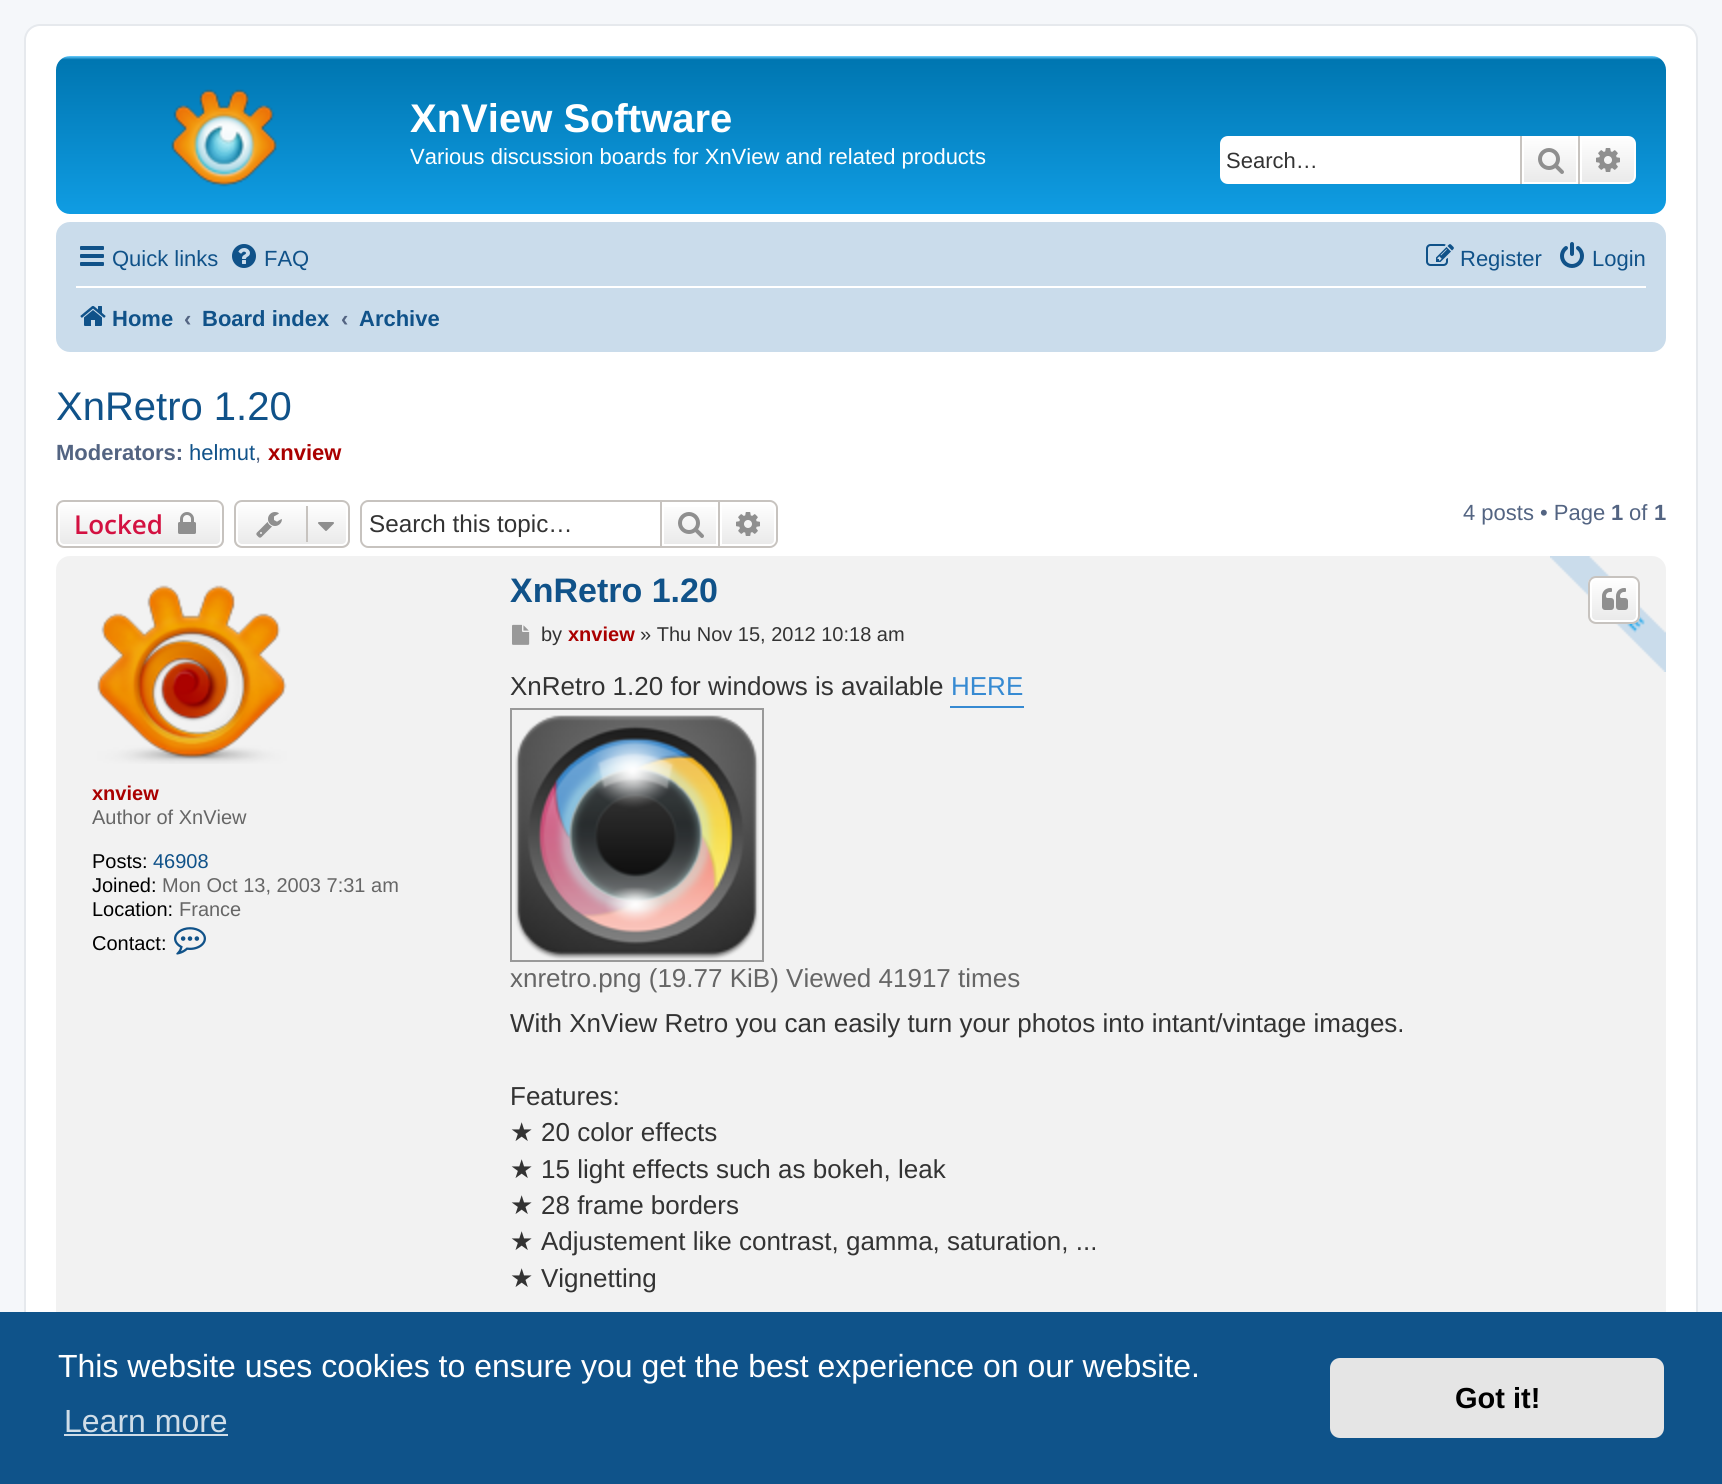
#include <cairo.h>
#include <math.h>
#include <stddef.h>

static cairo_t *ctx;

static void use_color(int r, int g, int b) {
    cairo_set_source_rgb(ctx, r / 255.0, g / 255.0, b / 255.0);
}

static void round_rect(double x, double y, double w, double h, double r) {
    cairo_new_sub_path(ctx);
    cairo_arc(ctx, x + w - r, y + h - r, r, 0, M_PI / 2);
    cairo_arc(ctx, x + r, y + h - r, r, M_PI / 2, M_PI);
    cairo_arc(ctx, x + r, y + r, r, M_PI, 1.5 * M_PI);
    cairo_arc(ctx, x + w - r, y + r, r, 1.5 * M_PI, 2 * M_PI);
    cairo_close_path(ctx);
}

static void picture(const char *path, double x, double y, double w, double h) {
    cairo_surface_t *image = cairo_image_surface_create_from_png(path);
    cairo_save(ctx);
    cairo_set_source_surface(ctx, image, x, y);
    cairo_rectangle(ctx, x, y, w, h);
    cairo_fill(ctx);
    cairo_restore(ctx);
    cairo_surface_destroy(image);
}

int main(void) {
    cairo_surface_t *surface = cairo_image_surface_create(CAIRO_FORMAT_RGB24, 1722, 1484);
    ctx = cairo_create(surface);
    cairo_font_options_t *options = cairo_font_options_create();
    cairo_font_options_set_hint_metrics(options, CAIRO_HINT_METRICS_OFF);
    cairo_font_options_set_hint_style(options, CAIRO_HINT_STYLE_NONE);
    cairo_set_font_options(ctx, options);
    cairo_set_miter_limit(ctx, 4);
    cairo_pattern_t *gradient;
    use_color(245, 247, 250);
    cairo_paint(ctx);
    use_color(255, 255, 255);
    round_rect(25, 25, 1672, 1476, 15);
    cairo_fill_preserve(ctx);
    use_color(230, 233, 237);
    cairo_stroke(ctx);
    gradient = cairo_pattern_create_linear(861, 56, 861, 240);
    cairo_pattern_add_color_stop_rgba(gradient, 0, 0.416, 0.808, 1, 1);
    cairo_pattern_add_color_stop_rgba(gradient, 0.02, 0, 0.463, 0.694, 1);
    cairo_pattern_add_color_stop_rgba(gradient, 1, 0.071, 0.639, 0.922, 1);
    cairo_set_source(ctx, gradient);
    cairo_pattern_destroy(gradient);
    round_rect(56, 56, 1610, 158, 14);
    cairo_fill(ctx);
    picture("img1.png", 171, 89, 106, 98);
    cairo_select_font_face(ctx, "Liberation Sans", CAIRO_FONT_SLANT_NORMAL, CAIRO_FONT_WEIGHT_BOLD);
    cairo_set_font_size(ctx, 40);
    use_color(255, 255, 255);
    cairo_move_to(ctx, 410, 132);
    cairo_show_text(ctx, "XnView Software");
    cairo_select_font_face(ctx, "Liberation Sans", CAIRO_FONT_SLANT_NORMAL, CAIRO_FONT_WEIGHT_NORMAL);
    cairo_set_font_size(ctx, 22);
    cairo_move_to(ctx, 410, 164);
    cairo_show_text(ctx, "Various discussion boards for XnView and related products");
    cairo_new_path(ctx);
    cairo_move_to(ctx, 1228, 136);
    cairo_line_to(ctx, 1520, 136);
    cairo_line_to(ctx, 1520, 184);
    cairo_line_to(ctx, 1228, 184);
    cairo_curve_to(ctx, 1223.5, 184, 1220, 180.5, 1220, 176);
    cairo_line_to(ctx, 1220, 144);
    cairo_curve_to(ctx, 1220, 139.5, 1223.5, 136, 1228, 136);
    cairo_close_path(ctx);
    cairo_fill(ctx);
    use_color(51, 51, 51);
    cairo_move_to(ctx, 1226, 168);
    cairo_show_text(ctx, "Search…");
    gradient = cairo_pattern_create_linear(1550, 136, 1550, 184);
    cairo_pattern_add_color_stop_rgba(gradient, 0, 1, 1, 1, 1);
    cairo_pattern_add_color_stop_rgba(gradient, 1, 0.914, 0.914, 0.914, 1);
    cairo_set_source(ctx, gradient);
    cairo_pattern_destroy(gradient);
    cairo_rectangle(ctx, 1524, 138, 52, 44);
    cairo_fill(ctx);
    cairo_rectangle(ctx, 1523, 137, 54, 46);
    use_color(255, 255, 255);
    cairo_stroke(ctx);
    use_color(199, 195, 191);
    cairo_rectangle(ctx, 1578, 136, 2, 48);
    cairo_fill(ctx);
    cairo_rectangle(ctx, 1520, 136, 2, 48);
    cairo_fill(ctx);
    picture("img2.png", 1538, 148, 26, 26);
    gradient = cairo_pattern_create_linear(1608, 136, 1608, 184);
    cairo_pattern_add_color_stop_rgba(gradient, 0, 1, 1, 1, 1);
    cairo_pattern_add_color_stop_rgba(gradient, 1, 0.914, 0.914, 0.914, 1);
    cairo_set_source(ctx, gradient);
    cairo_pattern_destroy(gradient);
    cairo_new_path(ctx);
    cairo_move_to(ctx, 1581, 137);
    cairo_line_to(ctx, 1628, 137);
    cairo_curve_to(ctx, 1632, 137, 1635, 140, 1635, 144);
    cairo_line_to(ctx, 1635, 176);
    cairo_curve_to(ctx, 1635, 180, 1632, 183, 1628, 183);
    cairo_line_to(ctx, 1581, 183);
    cairo_close_path(ctx);
    cairo_fill_preserve(ctx);
    use_color(255, 255, 255);
    cairo_stroke(ctx);
    picture("img3.png", 1596, 148, 24, 24);
    use_color(202, 220, 235);
    round_rect(56, 222, 1610, 130, 14);
    cairo_fill(ctx);
    picture("img4.png", 80, 246, 24, 20);
    use_color(16, 82, 137);
    cairo_move_to(ctx, 112, 266);
    cairo_show_text(ctx, "Quick links");
    picture("img5.png", 232, 244, 24, 24);
    cairo_move_to(ctx, 264, 266);
    cairo_show_text(ctx, "FAQ");
    picture("img6.png", 1426, 244, 28, 22);
    cairo_move_to(ctx, 1460, 266);
    cairo_show_text(ctx, "Register");
    picture("img7.png", 1560, 242, 24, 26);
    cairo_move_to(ctx, 1592, 266);
    cairo_show_text(ctx, "Login");
    use_color(255, 255, 255);
    cairo_rectangle(ctx, 76, 286, 1570, 2);
    cairo_fill(ctx);
    picture("img8.png", 80, 306, 26, 20);
    cairo_select_font_face(ctx, "Liberation Sans", CAIRO_FONT_SLANT_NORMAL, CAIRO_FONT_WEIGHT_BOLD);
    use_color(16, 82, 137);
    cairo_move_to(ctx, 112, 326);
    cairo_show_text(ctx, "Home");
    use_color(83, 100, 130);
    cairo_move_to(ctx, 184, 326);
    cairo_show_text(ctx, "‹");
    use_color(16, 82, 137);
    cairo_move_to(ctx, 202, 326);
    cairo_show_text(ctx, "Board index");
    use_color(83, 100, 130);
    cairo_move_to(ctx, 341, 326);
    cairo_show_text(ctx, "‹");
    use_color(16, 82, 137);
    cairo_move_to(ctx, 359, 326);
    cairo_show_text(ctx, "Archive");
    cairo_select_font_face(ctx, "Liberation Sans", CAIRO_FONT_SLANT_NORMAL, CAIRO_FONT_WEIGHT_NORMAL);
    cairo_set_font_size(ctx, 40);
    cairo_move_to(ctx, 56, 420);
    cairo_show_text(ctx, "XnRetro 1.20");
    cairo_select_font_face(ctx, "Liberation Sans", CAIRO_FONT_SLANT_NORMAL, CAIRO_FONT_WEIGHT_BOLD);
    cairo_set_font_size(ctx, 22);
    use_color(83, 100, 130);
    cairo_move_to(ctx, 56, 460);
    cairo_show_text(ctx, "Moderators:");
    cairo_select_font_face(ctx, "Liberation Sans", CAIRO_FONT_SLANT_NORMAL, CAIRO_FONT_WEIGHT_NORMAL);
    use_color(16, 82, 137);
    cairo_move_to(ctx, 189, 460);
    cairo_show_text(ctx, "helmut");
    use_color(83, 100, 130);
    cairo_move_to(ctx, 255, 460);
    cairo_show_text(ctx, ",");
    cairo_select_font_face(ctx, "Liberation Sans", CAIRO_FONT_SLANT_NORMAL, CAIRO_FONT_WEIGHT_BOLD);
    use_color(170, 0, 0);
    cairo_move_to(ctx, 268, 460);
    cairo_show_text(ctx, "xnview");
    cairo_save(ctx);
    round_rect(56, 500, 168, 48, 8);
    cairo_clip(ctx);
    gradient = cairo_pattern_create_linear(140, 502, 140, 546);
    cairo_pattern_add_color_stop_rgba(gradient, 0, 1, 1, 1, 1);
    cairo_pattern_add_color_stop_rgba(gradient, 1, 0.914, 0.914, 0.914, 1);
    cairo_set_source(ctx, gradient);
    cairo_pattern_destroy(gradient);
    cairo_rectangle(ctx, 56, 502, 168, 44);
    cairo_fill(ctx);
    cairo_restore(ctx);
    round_rect(59, 503, 162, 42, 5);
    use_color(255, 255, 255);
    cairo_stroke(ctx);
    round_rect(57, 501, 166, 46, 7);
    use_color(199, 195, 191);
    cairo_stroke(ctx);
    cairo_select_font_face(ctx, "Open Sans SemiBold", CAIRO_FONT_SLANT_NORMAL, CAIRO_FONT_WEIGHT_NORMAL);
    cairo_set_font_size(ctx, 26);
    use_color(211, 17, 65);
    cairo_move_to(ctx, 74, 534);
    cairo_show_text(ctx, "Locked");
    picture("img9.png", 178, 512, 18, 22);
    cairo_save(ctx);
    round_rect(234, 500, 116, 48, 8);
    cairo_clip(ctx);
    gradient = cairo_pattern_create_linear(292, 502, 292, 546);
    cairo_pattern_add_color_stop_rgba(gradient, 0, 1, 1, 1, 1);
    cairo_pattern_add_color_stop_rgba(gradient, 1, 0.914, 0.914, 0.914, 1);
    cairo_set_source(ctx, gradient);
    cairo_pattern_destroy(gradient);
    cairo_rectangle(ctx, 234, 502, 116, 44);
    cairo_fill(ctx);
    cairo_restore(ctx);
    round_rect(237, 503, 110, 42, 5);
    use_color(255, 255, 255);
    cairo_stroke(ctx);
    round_rect(235, 501, 114, 46, 7);
    use_color(199, 195, 191);
    cairo_stroke(ctx);
    picture("img10.png", 256, 512, 26, 26);
    cairo_rectangle(ctx, 306, 506, 2, 36);
    cairo_fill(ctx);
    picture("img11.png", 318, 522, 16, 9);
    cairo_set_fill_rule(ctx, CAIRO_FILL_RULE_EVEN_ODD);
    cairo_new_path(ctx);
    cairo_move_to(ctx, 368, 500);
    cairo_line_to(ctx, 660, 500);
    cairo_line_to(ctx, 660, 548);
    cairo_line_to(ctx, 368, 548);
    cairo_curve_to(ctx, 364, 548, 360, 544, 360, 540);
    cairo_line_to(ctx, 360, 508);
    cairo_curve_to(ctx, 360, 504, 364, 500, 368, 500);
    cairo_close_path(ctx);
    cairo_move_to(ctx, 368, 502);
    cairo_line_to(ctx, 660, 502);
    cairo_line_to(ctx, 660, 546);
    cairo_line_to(ctx, 368, 546);
    cairo_curve_to(ctx, 365, 546, 362, 543, 362, 540);
    cairo_line_to(ctx, 362, 508);
    cairo_curve_to(ctx, 362, 505, 365, 502, 368, 502);
    cairo_close_path(ctx);
    cairo_fill(ctx);
    cairo_select_font_face(ctx, "Liberation Sans", CAIRO_FONT_SLANT_NORMAL, CAIRO_FONT_WEIGHT_NORMAL);
    cairo_set_font_size(ctx, 24.25);
    use_color(51, 51, 51);
    cairo_move_to(ctx, 369, 532);
    cairo_show_text(ctx, "Search this topic…");
    gradient = cairo_pattern_create_linear(690, 502, 690, 546);
    cairo_pattern_add_color_stop_rgba(gradient, 0, 1, 1, 1, 1);
    cairo_pattern_add_color_stop_rgba(gradient, 1, 0.914, 0.914, 0.914, 1);
    cairo_set_source(ctx, gradient);
    cairo_pattern_destroy(gradient);
    cairo_rectangle(ctx, 664, 507, 52, 37);
    cairo_fill(ctx);
    cairo_rectangle(ctx, 661, 501, 58, 46);
    use_color(199, 195, 191);
    cairo_stroke(ctx);
    picture("img12.png", 678, 512, 26, 26);
    gradient = cairo_pattern_create_linear(748, 502, 748, 546);
    cairo_pattern_add_color_stop_rgba(gradient, 0, 1, 1, 1, 1);
    cairo_pattern_add_color_stop_rgba(gradient, 1, 0.914, 0.914, 0.914, 1);
    cairo_set_source(ctx, gradient);
    cairo_pattern_destroy(gradient);
    cairo_new_path(ctx);
    cairo_move_to(ctx, 721, 503);
    cairo_line_to(ctx, 770, 503);
    cairo_curve_to(ctx, 773, 503, 775, 505, 775, 508);
    cairo_line_to(ctx, 775, 540);
    cairo_curve_to(ctx, 775, 543, 773, 545, 770, 545);
    cairo_line_to(ctx, 721, 545);
    cairo_close_path(ctx);
    cairo_fill_preserve(ctx);
    use_color(255, 255, 255);
    cairo_stroke(ctx);
    use_color(199, 195, 191);
    cairo_new_path(ctx);
    cairo_move_to(ctx, 720, 500);
    cairo_line_to(ctx, 770, 500);
    cairo_curve_to(ctx, 774, 500, 778, 504, 778, 508);
    cairo_line_to(ctx, 778, 540);
    cairo_curve_to(ctx, 778, 544, 774, 548, 770, 548);
    cairo_line_to(ctx, 720, 548);
    cairo_close_path(ctx);
    cairo_move_to(ctx, 720, 502);
    cairo_line_to(ctx, 770, 502);
    cairo_curve_to(ctx, 773, 502, 776, 505, 776, 508);
    cairo_line_to(ctx, 776, 540);
    cairo_curve_to(ctx, 776, 543, 773, 546, 770, 546);
    cairo_line_to(ctx, 720, 546);
    cairo_close_path(ctx);
    cairo_fill(ctx);
    picture("img13.png", 736, 512, 24, 24);
    cairo_set_font_size(ctx, 22);
    use_color(83, 100, 130);
    cairo_move_to(ctx, 1463, 520);
    cairo_show_text(ctx, "4 posts • Page");
    cairo_select_font_face(ctx, "Liberation Sans", CAIRO_FONT_SLANT_NORMAL, CAIRO_FONT_WEIGHT_BOLD);
    cairo_move_to(ctx, 1611, 520);
    cairo_show_text(ctx, "1");
    cairo_select_font_face(ctx, "Liberation Sans", CAIRO_FONT_SLANT_NORMAL, CAIRO_FONT_WEIGHT_NORMAL);
    cairo_move_to(ctx, 1629, 520);
    cairo_show_text(ctx, "of");
    cairo_select_font_face(ctx, "Liberation Sans", CAIRO_FONT_SLANT_NORMAL, CAIRO_FONT_WEIGHT_BOLD);
    cairo_move_to(ctx, 1654, 520);
    cairo_show_text(ctx, "1");
    use_color(242, 242, 242);
    round_rect(56, 556, 1610, 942, 14);
    cairo_fill(ctx);
    picture("img14.png", 1550, 556, 116, 116);
    picture("img15.png", 97, 585, 190, 179);
    cairo_set_font_size(ctx, 20);
    use_color(170, 0, 0);
    cairo_move_to(ctx, 92, 800);
    cairo_show_text(ctx, "xnview");
    cairo_select_font_face(ctx, "Liberation Sans", CAIRO_FONT_SLANT_NORMAL, CAIRO_FONT_WEIGHT_NORMAL);
    use_color(102, 102, 102);
    cairo_move_to(ctx, 92, 824);
    cairo_show_text(ctx, "Author of XnView");
    use_color(0, 0, 0);
    cairo_move_to(ctx, 92, 868);
    cairo_show_text(ctx, "Posts:");
    use_color(16, 82, 137);
    cairo_move_to(ctx, 153, 868);
    cairo_show_text(ctx, "46908");
    use_color(0, 0, 0);
    cairo_move_to(ctx, 92, 892);
    cairo_show_text(ctx, "Joined:");
    use_color(102, 102, 102);
    cairo_move_to(ctx, 162, 892);
    cairo_show_text(ctx, "Mon Oct 13, 2003 7:31 am");
    use_color(0, 0, 0);
    cairo_move_to(ctx, 92, 916);
    cairo_show_text(ctx, "Location:");
    use_color(102, 102, 102);
    cairo_move_to(ctx, 179, 916);
    cairo_show_text(ctx, "France");
    use_color(0, 0, 0);
    cairo_move_to(ctx, 92, 950);
    cairo_show_text(ctx, "Contact:");
    picture("img16.png", 174, 927, 32, 28);
    cairo_select_font_face(ctx, "Liberation Sans", CAIRO_FONT_SLANT_NORMAL, CAIRO_FONT_WEIGHT_BOLD);
    cairo_set_font_size(ctx, 34);
    use_color(16, 82, 137);
    cairo_move_to(ctx, 510, 602);
    cairo_show_text(ctx, "XnRetro 1.20");
    cairo_save(ctx);
    cairo_set_fill_rule(ctx, CAIRO_FILL_RULE_WINDING);
    round_rect(1588, 576, 52, 48, 8);
    cairo_clip(ctx);
    gradient = cairo_pattern_create_linear(1614, 578, 1614, 622);
    cairo_pattern_add_color_stop_rgba(gradient, 0, 1, 1, 1, 1);
    cairo_pattern_add_color_stop_rgba(gradient, 1, 0.914, 0.914, 0.914, 1);
    cairo_set_source(ctx, gradient);
    cairo_pattern_destroy(gradient);
    cairo_rectangle(ctx, 1588, 578, 52, 44);
    cairo_fill(ctx);
    cairo_restore(ctx);
    round_rect(1591, 579, 46, 42, 5);
    use_color(255, 255, 255);
    cairo_stroke(ctx);
    round_rect(1589, 577, 50, 46, 7);
    use_color(199, 195, 191);
    cairo_stroke(ctx);
    picture("img17.png", 1602, 588, 26, 22);
    picture("img18.png", 512, 624, 18, 21);
    cairo_select_font_face(ctx, "Liberation Sans", CAIRO_FONT_SLANT_NORMAL, CAIRO_FONT_WEIGHT_NORMAL);
    cairo_set_font_size(ctx, 20);
    use_color(51, 51, 51);
    cairo_move_to(ctx, 541, 641);
    cairo_show_text(ctx, "by");
    cairo_select_font_face(ctx, "Liberation Sans", CAIRO_FONT_SLANT_NORMAL, CAIRO_FONT_WEIGHT_BOLD);
    use_color(170, 0, 0);
    cairo_move_to(ctx, 568, 641);
    cairo_show_text(ctx, "xnview");
    cairo_select_font_face(ctx, "Liberation Sans", CAIRO_FONT_SLANT_NORMAL, CAIRO_FONT_WEIGHT_NORMAL);
    use_color(51, 51, 51);
    cairo_move_to(ctx, 640, 641);
    cairo_show_text(ctx, "» Thu Nov 15, 2012 10:18 am");
    cairo_set_font_size(ctx, 26);
    cairo_move_to(ctx, 510, 695);
    cairo_show_text(ctx, "XnRetro 1.20 for windows is available");
    use_color(54, 138, 210);
    cairo_rectangle(ctx, 950, 706, 74, 2);
    cairo_fill(ctx);
    cairo_move_to(ctx, 951, 695);
    cairo_show_text(ctx, "HERE");
    cairo_rectangle(ctx, 511, 709, 252, 252);
    use_color(153, 153, 153);
    cairo_stroke(ctx);
    picture("img19.png", 515, 715, 244, 245);
    use_color(102, 102, 102);
    cairo_move_to(ctx, 510, 987);
    cairo_show_text(ctx, "xnretro.png (19.77 KiB) Viewed 41917 times");
    use_color(51, 51, 51);
    cairo_move_to(ctx, 510, 1032);
    cairo_show_text(ctx, "With XnView Retro you can easily turn your photos into intant/vintage images.");
    cairo_move_to(ctx, 510, 1105);
    cairo_show_text(ctx, "Features:");
    cairo_select_font_face(ctx, "DejaVu Sans", CAIRO_FONT_SLANT_NORMAL, CAIRO_FONT_WEIGHT_NORMAL);
    cairo_move_to(ctx, 510, 1141);
    cairo_show_text(ctx, "★");
    cairo_select_font_face(ctx, "Liberation Sans", CAIRO_FONT_SLANT_NORMAL, CAIRO_FONT_WEIGHT_NORMAL);
    cairo_move_to(ctx, 541, 1141);
    cairo_show_text(ctx, "20 color effects");
    cairo_select_font_face(ctx, "DejaVu Sans", CAIRO_FONT_SLANT_NORMAL, CAIRO_FONT_WEIGHT_NORMAL);
    cairo_move_to(ctx, 510, 1178);
    cairo_show_text(ctx, "★");
    cairo_select_font_face(ctx, "Liberation Sans", CAIRO_FONT_SLANT_NORMAL, CAIRO_FONT_WEIGHT_NORMAL);
    cairo_move_to(ctx, 541, 1178);
    cairo_show_text(ctx, "15 light effects such as bokeh, leak");
    cairo_select_font_face(ctx, "DejaVu Sans", CAIRO_FONT_SLANT_NORMAL, CAIRO_FONT_WEIGHT_NORMAL);
    cairo_move_to(ctx, 510, 1214);
    cairo_show_text(ctx, "★");
    cairo_select_font_face(ctx, "Liberation Sans", CAIRO_FONT_SLANT_NORMAL, CAIRO_FONT_WEIGHT_NORMAL);
    cairo_move_to(ctx, 541, 1214);
    cairo_show_text(ctx, "28 frame borders");
    cairo_select_font_face(ctx, "DejaVu Sans", CAIRO_FONT_SLANT_NORMAL, CAIRO_FONT_WEIGHT_NORMAL);
    cairo_move_to(ctx, 510, 1250);
    cairo_show_text(ctx, "★");
    cairo_select_font_face(ctx, "Liberation Sans", CAIRO_FONT_SLANT_NORMAL, CAIRO_FONT_WEIGHT_NORMAL);
    cairo_move_to(ctx, 541, 1250);
    cairo_show_text(ctx, "Adjustement like contrast, gamma, saturation, ...");
    cairo_select_font_face(ctx, "DejaVu Sans", CAIRO_FONT_SLANT_NORMAL, CAIRO_FONT_WEIGHT_NORMAL);
    cairo_move_to(ctx, 510, 1287);
    cairo_show_text(ctx, "★");
    cairo_select_font_face(ctx, "Liberation Sans", CAIRO_FONT_SLANT_NORMAL, CAIRO_FONT_WEIGHT_NORMAL);
    cairo_move_to(ctx, 541, 1287);
    cairo_show_text(ctx, "Vignetting");
    use_color(15, 83, 138);
    cairo_rectangle(ctx, 0, 1312, 1722, 172);
    cairo_fill(ctx);
    cairo_set_font_size(ctx, 32);
    use_color(255, 255, 255);
    cairo_move_to(ctx, 58, 1377);
    cairo_show_text(ctx, "This website uses cookies to ensure you get the best experience on our website.");
    use_color(207, 221, 232);
    cairo_move_to(ctx, 64, 1432);
    cairo_show_text(ctx, "Learn more");
    cairo_rectangle(ctx, 64, 1434, 164, 2);
    cairo_fill(ctx);
    use_color(229, 229, 229);
    round_rect(1330, 1358, 334, 80, 10);
    cairo_fill(ctx);
    cairo_select_font_face(ctx, "Liberation Sans", CAIRO_FONT_SLANT_NORMAL, CAIRO_FONT_WEIGHT_BOLD);
    cairo_set_font_size(ctx, 29);
    use_color(0, 0, 0);
    cairo_move_to(ctx, 1455, 1408);
    cairo_show_text(ctx, "Got it!");
    cairo_surface_write_to_png(surface, "result.png");
    cairo_font_options_destroy(options);
    cairo_destroy(ctx);
    cairo_surface_destroy(surface);
    return 0;
}
